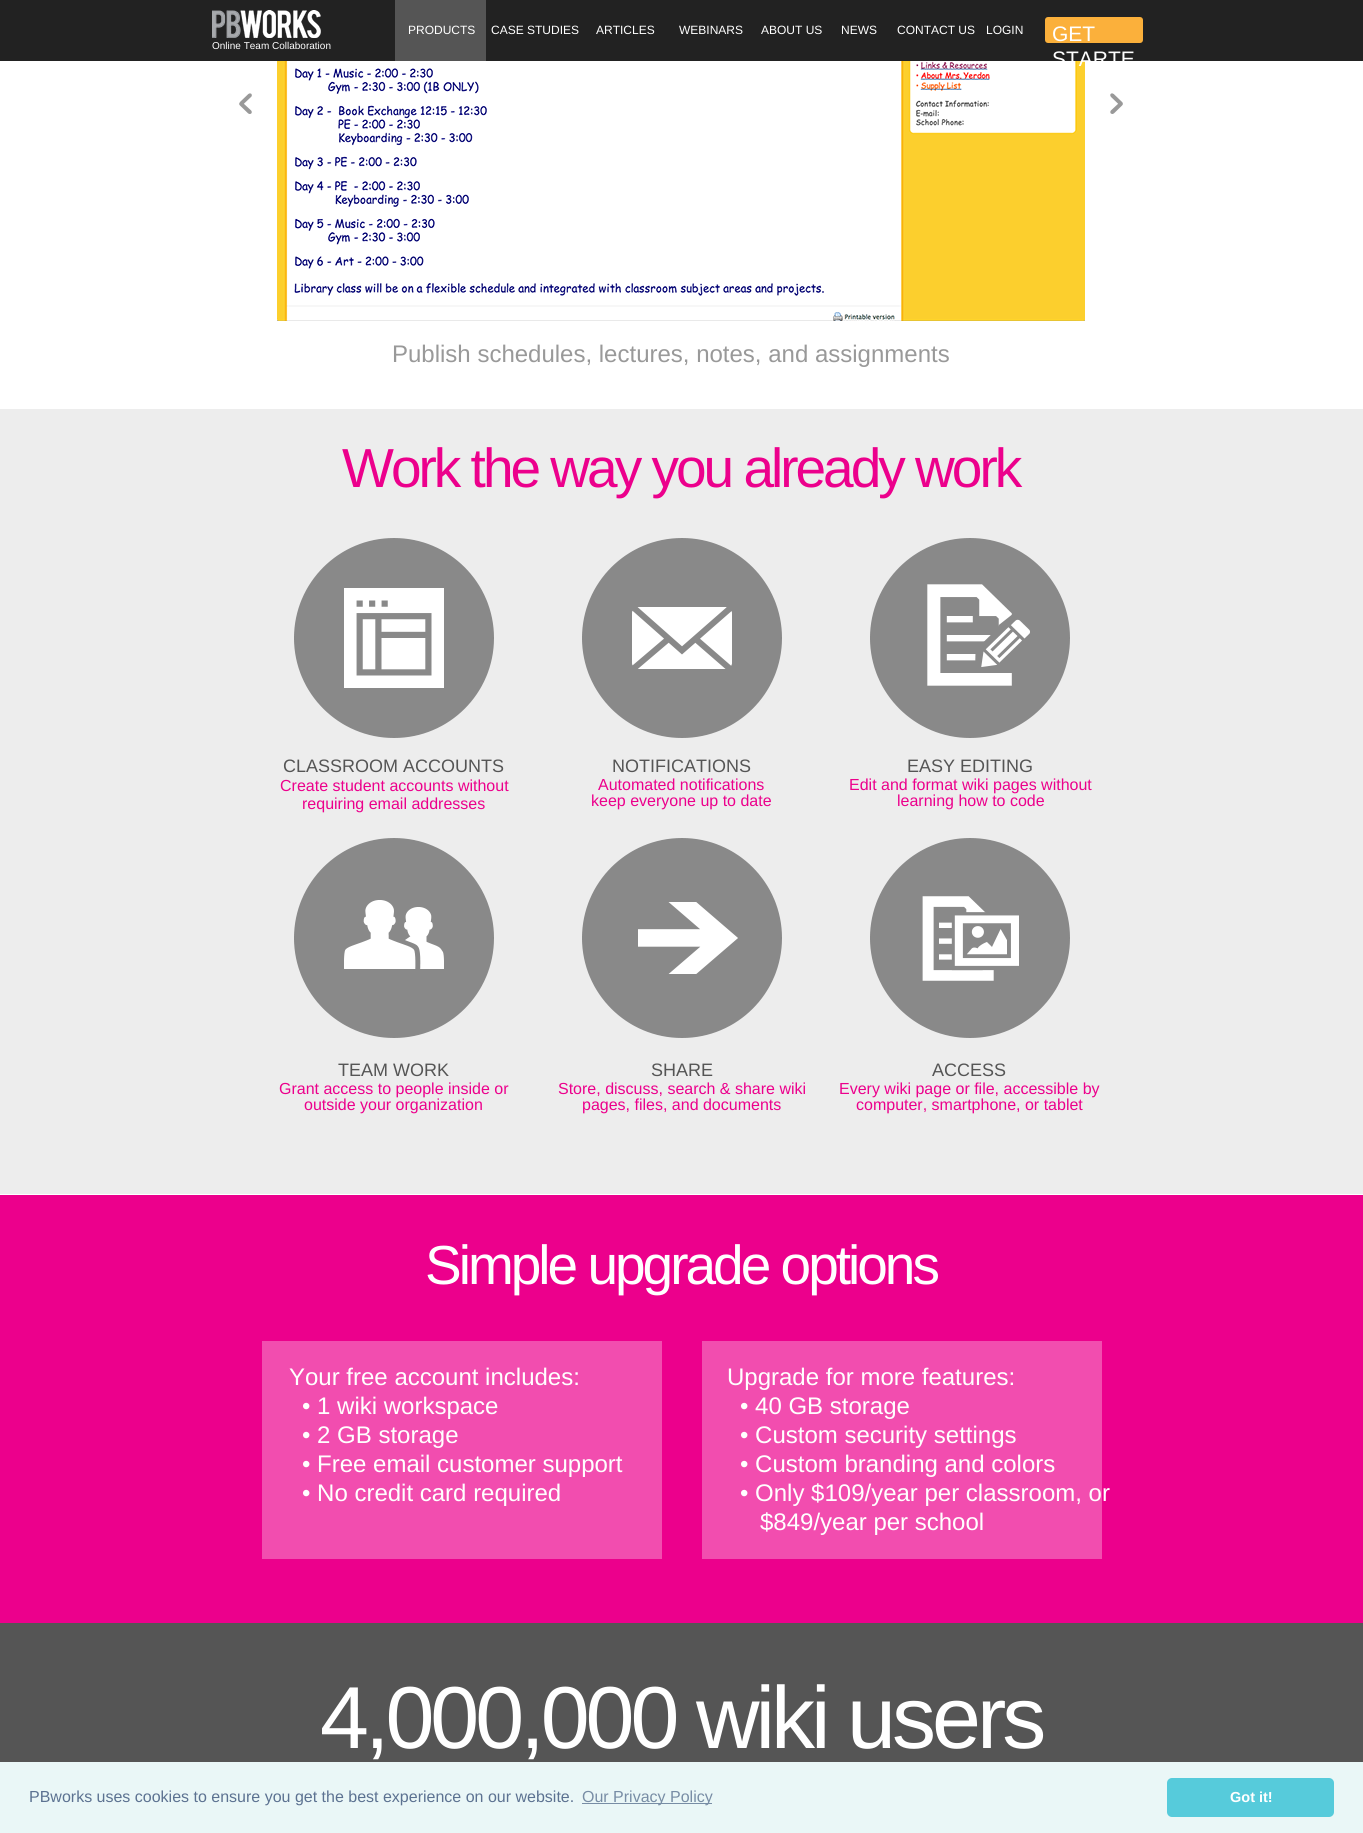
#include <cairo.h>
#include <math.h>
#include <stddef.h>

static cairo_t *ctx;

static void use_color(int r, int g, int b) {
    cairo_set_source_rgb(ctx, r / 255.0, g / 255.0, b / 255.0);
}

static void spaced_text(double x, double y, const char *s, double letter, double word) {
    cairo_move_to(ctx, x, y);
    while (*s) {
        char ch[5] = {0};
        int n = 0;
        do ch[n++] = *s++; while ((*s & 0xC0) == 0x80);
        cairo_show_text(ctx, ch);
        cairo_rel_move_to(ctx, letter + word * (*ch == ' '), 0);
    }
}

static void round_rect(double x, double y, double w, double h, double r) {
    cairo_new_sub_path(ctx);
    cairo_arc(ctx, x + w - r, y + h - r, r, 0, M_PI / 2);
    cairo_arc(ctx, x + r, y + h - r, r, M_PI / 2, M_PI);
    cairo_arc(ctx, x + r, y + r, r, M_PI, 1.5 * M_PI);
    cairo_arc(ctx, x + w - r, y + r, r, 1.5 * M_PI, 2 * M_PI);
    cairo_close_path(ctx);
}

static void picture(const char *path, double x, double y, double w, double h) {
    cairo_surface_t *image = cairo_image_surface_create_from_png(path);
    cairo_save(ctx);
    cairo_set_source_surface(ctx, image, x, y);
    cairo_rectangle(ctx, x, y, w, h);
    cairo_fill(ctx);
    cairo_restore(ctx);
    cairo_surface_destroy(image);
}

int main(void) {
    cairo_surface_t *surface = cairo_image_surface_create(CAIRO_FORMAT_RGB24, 1363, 1833);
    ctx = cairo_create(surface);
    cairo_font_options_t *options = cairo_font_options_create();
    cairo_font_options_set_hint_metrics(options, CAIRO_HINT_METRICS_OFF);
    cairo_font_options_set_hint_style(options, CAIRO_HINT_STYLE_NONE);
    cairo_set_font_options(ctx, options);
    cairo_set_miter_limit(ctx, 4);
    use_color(255, 255, 255);
    cairo_paint(ctx);
    use_color(34, 34, 34);
    cairo_rectangle(ctx, 0, 0, 1363, 61);
    cairo_fill(ctx);
    picture("img1.png", 212, 10, 109, 28);
    use_color(85, 85, 85);
    cairo_rectangle(ctx, 395, 0, 91, 61);
    cairo_fill(ctx);
    cairo_select_font_face(ctx, "Liberation Sans", CAIRO_FONT_SLANT_NORMAL, CAIRO_FONT_WEIGHT_NORMAL);
    cairo_set_font_size(ctx, 12);
    use_color(255, 255, 255);
    cairo_move_to(ctx, 408, 34);
    cairo_show_text(ctx, "PRODUCTS");
    cairo_move_to(ctx, 491, 34);
    cairo_show_text(ctx, "CASE STUDIES");
    cairo_move_to(ctx, 596, 34);
    cairo_show_text(ctx, "ARTICLES");
    cairo_move_to(ctx, 679, 34);
    cairo_show_text(ctx, "WEBINARS");
    cairo_move_to(ctx, 761, 34);
    cairo_show_text(ctx, "ABOUT US");
    cairo_move_to(ctx, 841, 34);
    cairo_show_text(ctx, "NEWS");
    cairo_move_to(ctx, 897, 34);
    cairo_show_text(ctx, "CONTACT US");
    cairo_move_to(ctx, 986, 34);
    cairo_show_text(ctx, "LOGIN");
    use_color(251, 176, 59);
    round_rect(1045, 17, 98, 26, 3);
    cairo_fill(ctx);
    cairo_set_font_size(ctx, 21);
    use_color(255, 255, 255);
    cairo_move_to(ctx, 1052, 41);
    cairo_show_text(ctx, "GET");
    picture("img3.png", 277, 61, 808, 260);
    cairo_move_to(ctx, 1052, 66);
    cairo_show_text(ctx, "STARTE");
    cairo_set_font_size(ctx, 10);
    cairo_move_to(ctx, 212, 49);
    cairo_show_text(ctx, "Online Team Collaboration");
    picture("img2.png", 239, 93, 13, 21);
    picture("img4.png", 1110, 93, 13, 21);
    cairo_set_font_size(ctx, 24);
    use_color(153, 153, 153);
    cairo_move_to(ctx, 392, 362);
    cairo_show_text(ctx, "Publish schedules, lectures, notes, and assignments");
    use_color(237, 237, 237);
    cairo_rectangle(ctx, 0, 409, 1363, 785);
    cairo_fill(ctx);
    cairo_set_font_size(ctx, 55);
    use_color(236, 0, 140);
    spaced_text(342, 487, "Work the way you already work", -3, 0);
    picture("img5.png", 294, 538, 200, 200);
    picture("img6.png", 582, 538, 200, 200);
    picture("img7.png", 870, 538, 200, 200);
    cairo_set_font_size(ctx, 18);
    use_color(85, 85, 85);
    cairo_move_to(ctx, 283, 772);
    cairo_show_text(ctx, "CLASSROOM ACCOUNTS");
    cairo_set_font_size(ctx, 16);
    use_color(236, 0, 140);
    cairo_move_to(ctx, 280, 791);
    cairo_show_text(ctx, "Create student accounts without");
    cairo_move_to(ctx, 302, 809);
    cairo_show_text(ctx, "requiring email addresses");
    cairo_set_font_size(ctx, 18);
    use_color(85, 85, 85);
    cairo_move_to(ctx, 612, 772);
    cairo_show_text(ctx, "NOTIFICATIONS");
    cairo_set_font_size(ctx, 16);
    use_color(236, 0, 140);
    cairo_move_to(ctx, 598, 790);
    cairo_show_text(ctx, "Automated notifications");
    cairo_move_to(ctx, 591, 806);
    cairo_show_text(ctx, "keep everyone up to date");
    cairo_set_font_size(ctx, 18);
    use_color(85, 85, 85);
    cairo_move_to(ctx, 907, 772);
    cairo_show_text(ctx, "EASY EDITING");
    cairo_set_font_size(ctx, 16);
    use_color(236, 0, 140);
    cairo_move_to(ctx, 849, 790);
    cairo_show_text(ctx, "Edit and format wiki pages without");
    cairo_move_to(ctx, 897, 806);
    cairo_show_text(ctx, "learning how to code");
    picture("img8.png", 294, 838, 200, 200);
    picture("img9.png", 582, 838, 200, 200);
    picture("img10.png", 870, 838, 200, 200);
    cairo_set_font_size(ctx, 18);
    use_color(85, 85, 85);
    cairo_move_to(ctx, 338, 1076);
    cairo_show_text(ctx, "TEAM WORK");
    cairo_set_font_size(ctx, 16);
    use_color(236, 0, 140);
    cairo_move_to(ctx, 279, 1094);
    cairo_show_text(ctx, "Grant access to people inside or");
    cairo_move_to(ctx, 304, 1110);
    cairo_show_text(ctx, "outside your organization");
    cairo_set_font_size(ctx, 18);
    use_color(85, 85, 85);
    cairo_move_to(ctx, 651, 1076);
    cairo_show_text(ctx, "SHARE");
    cairo_set_font_size(ctx, 16);
    use_color(236, 0, 140);
    cairo_move_to(ctx, 558, 1094);
    cairo_show_text(ctx, "Store, discuss, search & share wiki");
    cairo_move_to(ctx, 582, 1110);
    cairo_show_text(ctx, "pages, files, and documents");
    cairo_set_font_size(ctx, 18);
    use_color(85, 85, 85);
    cairo_move_to(ctx, 932, 1076);
    cairo_show_text(ctx, "ACCESS");
    cairo_set_font_size(ctx, 16);
    use_color(236, 0, 140);
    cairo_move_to(ctx, 839, 1094);
    cairo_show_text(ctx, "Every wiki page or file, accessible by");
    cairo_move_to(ctx, 856, 1110);
    cairo_show_text(ctx, "computer, smartphone, or tablet");
    cairo_rectangle(ctx, 0, 1195, 1363, 428);
    cairo_fill(ctx);
    cairo_set_font_size(ctx, 55);
    use_color(255, 255, 255);
    spaced_text(425, 1284, "Simple upgrade options", -3, 0);
    use_color(242, 77, 175);
    cairo_rectangle(ctx, 262, 1341, 400, 218);
    cairo_fill(ctx);
    cairo_set_font_size(ctx, 24);
    use_color(255, 255, 255);
    cairo_move_to(ctx, 289, 1385);
    cairo_show_text(ctx, "Your free account includes:");
    cairo_move_to(ctx, 302, 1414);
    cairo_show_text(ctx, "• 1 wiki workspace");
    cairo_move_to(ctx, 302, 1443);
    cairo_show_text(ctx, "• 2 GB storage");
    cairo_move_to(ctx, 302, 1472);
    cairo_show_text(ctx, "• Free email customer support");
    cairo_move_to(ctx, 302, 1501);
    cairo_show_text(ctx, "• No credit card required");
    use_color(242, 77, 175);
    cairo_rectangle(ctx, 702, 1341, 400, 218);
    cairo_fill(ctx);
    use_color(255, 255, 255);
    cairo_move_to(ctx, 727, 1385);
    cairo_show_text(ctx, "Upgrade for more features:");
    cairo_move_to(ctx, 740, 1414);
    cairo_show_text(ctx, "• 40 GB storage");
    cairo_move_to(ctx, 740, 1443);
    cairo_show_text(ctx, "• Custom security settings");
    cairo_move_to(ctx, 740, 1472);
    cairo_show_text(ctx, "• Custom branding and colors");
    cairo_move_to(ctx, 740, 1501);
    cairo_show_text(ctx, "• Only $109/year per classroom, or");
    cairo_move_to(ctx, 760, 1530);
    cairo_show_text(ctx, "$849/year per school");
    use_color(85, 85, 85);
    cairo_rectangle(ctx, 0, 1623, 1363, 139);
    cairo_fill(ctx);
    cairo_set_font_size(ctx, 88);
    use_color(255, 255, 255);
    spaced_text(320, 1748, "4,000,000 wiki users", -4, 0);
    use_color(234, 247, 247);
    cairo_rectangle(ctx, 0, 1762, 1363, 71);
    cairo_fill(ctx);
    cairo_set_font_size(ctx, 16);
    use_color(92, 114, 145);
    cairo_move_to(ctx, 29, 1802);
    cairo_show_text(ctx, "PBworks uses cookies to ensure you get the best experience on our website.");
    use_color(120, 141, 165);
    cairo_rectangle(ctx, 582, 1803, 130, 1);
    cairo_fill(ctx);
    cairo_move_to(ctx, 582, 1802);
    cairo_show_text(ctx, "Our Privacy Policy");
    use_color(86, 203, 219);
    round_rect(1167, 1778, 167, 39, 5);
    cairo_fill(ctx);
    cairo_select_font_face(ctx, "Liberation Sans", CAIRO_FONT_SLANT_NORMAL, CAIRO_FONT_WEIGHT_BOLD);
    cairo_set_font_size(ctx, 14.5);
    use_color(255, 255, 255);
    cairo_move_to(ctx, 1230, 1802);
    cairo_show_text(ctx, "Got it!");
    cairo_surface_write_to_png(surface, "result.png");
    cairo_font_options_destroy(options);
    cairo_destroy(ctx);
    cairo_surface_destroy(surface);
    return 0;
}
